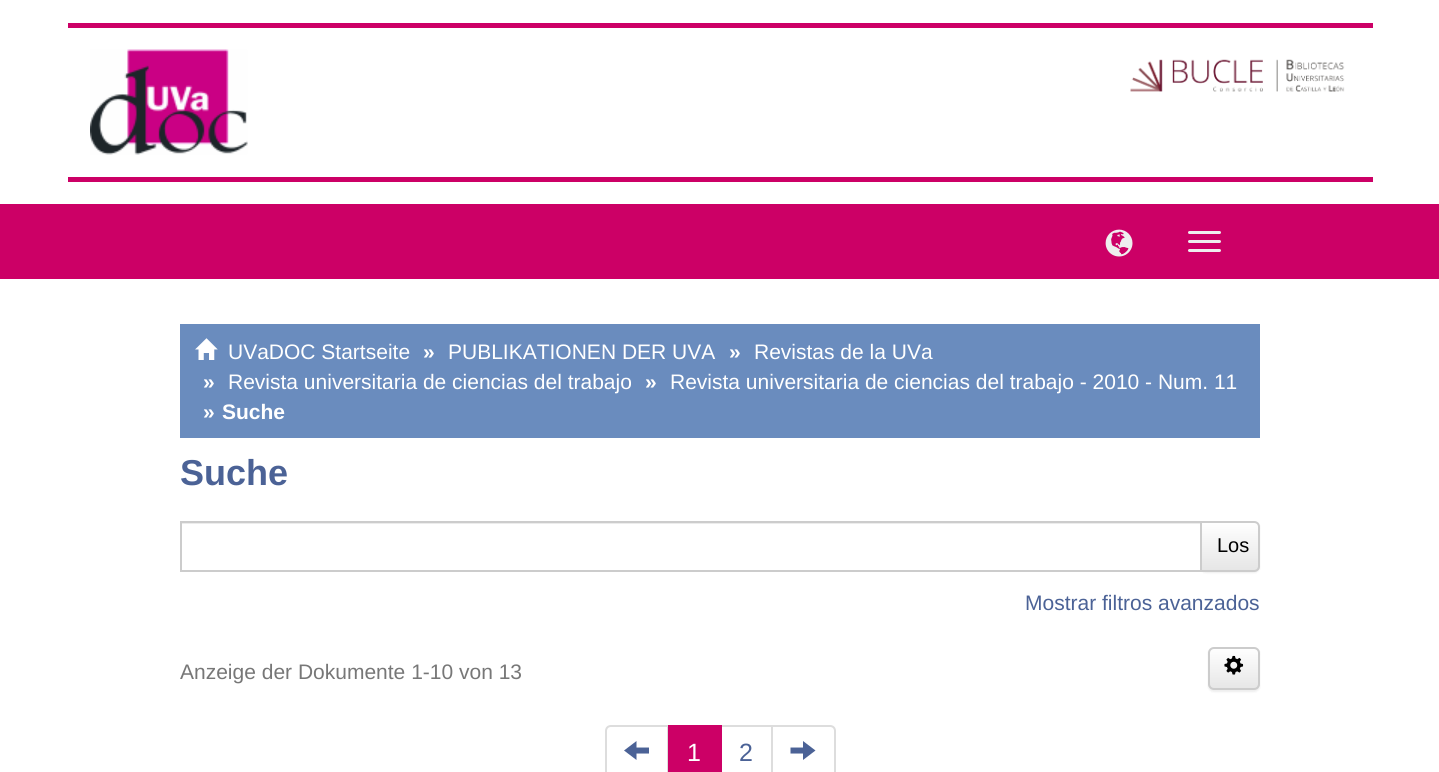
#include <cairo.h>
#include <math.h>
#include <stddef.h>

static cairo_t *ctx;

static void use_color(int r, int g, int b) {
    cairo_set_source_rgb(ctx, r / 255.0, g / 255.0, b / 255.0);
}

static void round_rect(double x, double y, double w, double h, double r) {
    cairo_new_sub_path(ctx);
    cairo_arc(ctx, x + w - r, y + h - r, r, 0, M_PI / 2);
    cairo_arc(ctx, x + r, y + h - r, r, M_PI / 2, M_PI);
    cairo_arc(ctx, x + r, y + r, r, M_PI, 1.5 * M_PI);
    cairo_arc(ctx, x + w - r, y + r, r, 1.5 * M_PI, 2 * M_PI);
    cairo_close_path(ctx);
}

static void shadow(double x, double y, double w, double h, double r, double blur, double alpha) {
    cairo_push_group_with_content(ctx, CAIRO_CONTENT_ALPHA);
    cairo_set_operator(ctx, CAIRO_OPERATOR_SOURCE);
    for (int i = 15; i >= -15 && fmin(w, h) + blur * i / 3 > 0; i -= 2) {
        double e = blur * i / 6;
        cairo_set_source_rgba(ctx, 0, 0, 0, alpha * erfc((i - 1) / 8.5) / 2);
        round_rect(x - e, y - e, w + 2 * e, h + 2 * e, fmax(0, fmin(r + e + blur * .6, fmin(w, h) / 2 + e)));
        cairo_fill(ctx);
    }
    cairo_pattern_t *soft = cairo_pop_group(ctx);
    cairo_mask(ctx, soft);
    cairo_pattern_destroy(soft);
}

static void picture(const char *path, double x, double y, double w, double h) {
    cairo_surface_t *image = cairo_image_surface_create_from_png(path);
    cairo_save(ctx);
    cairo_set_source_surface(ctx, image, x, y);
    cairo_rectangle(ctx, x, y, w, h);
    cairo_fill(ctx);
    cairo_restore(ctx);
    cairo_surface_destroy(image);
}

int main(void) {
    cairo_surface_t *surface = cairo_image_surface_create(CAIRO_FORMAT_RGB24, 1439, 772);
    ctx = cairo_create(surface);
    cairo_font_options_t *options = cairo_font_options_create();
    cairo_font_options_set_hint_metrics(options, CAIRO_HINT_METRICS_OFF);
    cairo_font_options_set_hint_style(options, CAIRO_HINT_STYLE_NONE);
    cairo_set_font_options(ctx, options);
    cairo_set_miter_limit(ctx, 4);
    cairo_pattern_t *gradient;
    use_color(255, 255, 255);
    cairo_paint(ctx);
    use_color(204, 0, 102);
    cairo_rectangle(ctx, 68, 23, 1305, 5);
    cairo_fill(ctx);
    cairo_rectangle(ctx, 68, 177, 1305, 5);
    cairo_fill(ctx);
    picture("img1.png", 90, 49, 158, 106);
    picture("img2.png", 1130, 59, 215, 33);
    cairo_rectangle(ctx, 0, 204, 1439, 75);
    cairo_fill(ctx);
    picture("img3.png", 1105, 229, 28, 28);
    use_color(238, 238, 238);
    round_rect(1188, 231, 33, 3, 1.5);
    cairo_fill(ctx);
    round_rect(1188, 240, 33, 3, 1.5);
    cairo_fill(ctx);
    round_rect(1188, 249, 33, 3, 1.5);
    cairo_fill(ctx);
    use_color(106, 140, 190);
    cairo_rectangle(ctx, 180, 324, 1080, 114);
    cairo_fill(ctx);
    picture("img4.png", 195, 338, 23, 22);
    cairo_select_font_face(ctx, "Liberation Sans", CAIRO_FONT_SLANT_NORMAL, CAIRO_FONT_WEIGHT_NORMAL);
    cairo_set_font_size(ctx, 21);
    use_color(255, 255, 255);
    cairo_move_to(ctx, 228, 359);
    cairo_show_text(ctx, "UVaDOC Startseite");
    cairo_select_font_face(ctx, "Liberation Sans", CAIRO_FONT_SLANT_NORMAL, CAIRO_FONT_WEIGHT_BOLD);
    cairo_move_to(ctx, 423, 359);
    cairo_show_text(ctx, "»");
    cairo_select_font_face(ctx, "Liberation Sans", CAIRO_FONT_SLANT_NORMAL, CAIRO_FONT_WEIGHT_NORMAL);
    cairo_move_to(ctx, 448, 359);
    cairo_show_text(ctx, "PUBLIKATIONEN DER UVA");
    cairo_select_font_face(ctx, "Liberation Sans", CAIRO_FONT_SLANT_NORMAL, CAIRO_FONT_WEIGHT_BOLD);
    cairo_move_to(ctx, 729, 359);
    cairo_show_text(ctx, "»");
    cairo_select_font_face(ctx, "Liberation Sans", CAIRO_FONT_SLANT_NORMAL, CAIRO_FONT_WEIGHT_NORMAL);
    cairo_move_to(ctx, 754, 359);
    cairo_show_text(ctx, "Revistas de la UVa");
    cairo_select_font_face(ctx, "Liberation Sans", CAIRO_FONT_SLANT_NORMAL, CAIRO_FONT_WEIGHT_BOLD);
    cairo_move_to(ctx, 203, 389);
    cairo_show_text(ctx, "»");
    cairo_select_font_face(ctx, "Liberation Sans", CAIRO_FONT_SLANT_NORMAL, CAIRO_FONT_WEIGHT_NORMAL);
    cairo_move_to(ctx, 228, 389);
    cairo_show_text(ctx, "Revista universitaria de ciencias del trabajo");
    cairo_select_font_face(ctx, "Liberation Sans", CAIRO_FONT_SLANT_NORMAL, CAIRO_FONT_WEIGHT_BOLD);
    cairo_move_to(ctx, 645, 389);
    cairo_show_text(ctx, "»");
    cairo_select_font_face(ctx, "Liberation Sans", CAIRO_FONT_SLANT_NORMAL, CAIRO_FONT_WEIGHT_NORMAL);
    cairo_move_to(ctx, 670, 389);
    cairo_show_text(ctx, "Revista universitaria de ciencias del trabajo - 2010 - Num. 11");
    cairo_select_font_face(ctx, "Liberation Sans", CAIRO_FONT_SLANT_NORMAL, CAIRO_FONT_WEIGHT_BOLD);
    cairo_move_to(ctx, 203, 419);
    cairo_show_text(ctx, "»");
    cairo_move_to(ctx, 222, 419);
    cairo_show_text(ctx, "Suche");
    cairo_set_font_size(ctx, 36);
    use_color(75, 98, 150);
    cairo_move_to(ctx, 180, 485);
    cairo_show_text(ctx, "Suche");
    use_color(0, 0, 0);
    shadow(1200, 522, 60, 51, 6, 1, 0.07);
    use_color(255, 255, 255);
    cairo_rectangle(ctx, 1199, 525, 1, 45);
    cairo_fill(ctx);
    use_color(236, 236, 236);
    cairo_rectangle(ctx, 182, 523, 1018, 1);
    cairo_fill(ctx);
    cairo_save(ctx);
    cairo_new_path(ctx);
    cairo_move_to(ctx, 1200, 521);
    cairo_line_to(ctx, 1254, 521);
    cairo_curve_to(ctx, 1257.5, 521, 1260, 523.5, 1260, 527);
    cairo_line_to(ctx, 1260, 566);
    cairo_curve_to(ctx, 1260, 569.5, 1257.5, 572, 1254, 572);
    cairo_line_to(ctx, 1200, 572);
    cairo_close_path(ctx);
    cairo_clip(ctx);
    gradient = cairo_pattern_create_linear(1230, 522, 1230, 570);
    cairo_pattern_add_color_stop_rgba(gradient, 0, 1, 1, 1, 1);
    cairo_pattern_add_color_stop_rgba(gradient, 1, 0.902, 0.902, 0.902, 1);
    cairo_set_source(ctx, gradient);
    cairo_pattern_destroy(gradient);
    cairo_rectangle(ctx, 1202, 522, 58, 48);
    cairo_fill(ctx);
    cairo_restore(ctx);
    cairo_set_source_rgba(ctx, 1, 1, 1, 0.15);
    cairo_new_path(ctx);
    cairo_move_to(ctx, 1202, 524);
    cairo_line_to(ctx, 1245, 524);
    cairo_curve_to(ctx, 1261, 524, 1258, 524, 1258, 541);
    cairo_line_to(ctx, 1258, 568);
    cairo_curve_to(ctx, 1259, 567, 1259, 566, 1259, 565);
    cairo_line_to(ctx, 1259, 527);
    cairo_curve_to(ctx, 1259, 524, 1257, 522, 1254, 522);
    cairo_line_to(ctx, 1202, 522);
    cairo_close_path(ctx);
    cairo_fill(ctx);
    cairo_new_path(ctx);
    cairo_move_to(ctx, 1201, 522);
    cairo_line_to(ctx, 1254, 522);
    cairo_curve_to(ctx, 1257, 522, 1259, 524, 1259, 527);
    cairo_line_to(ctx, 1259, 566);
    cairo_curve_to(ctx, 1259, 569, 1257, 571, 1254, 571);
    cairo_line_to(ctx, 1201, 571);
    cairo_close_path(ctx);
    use_color(204, 204, 204);
    cairo_stroke(ctx);
    cairo_rectangle(ctx, 181, 522, 1020, 49);
    cairo_stroke(ctx);
    cairo_select_font_face(ctx, "Liberation Sans", CAIRO_FONT_SLANT_NORMAL, CAIRO_FONT_WEIGHT_NORMAL);
    cairo_set_font_size(ctx, 20);
    use_color(0, 0, 0);
    cairo_move_to(ctx, 1217, 552);
    cairo_show_text(ctx, "Los");
    cairo_set_font_size(ctx, 21);
    use_color(75, 98, 150);
    cairo_move_to(ctx, 1025, 610);
    cairo_show_text(ctx, "Mostrar filtros avanzados");
    use_color(119, 119, 119);
    cairo_move_to(ctx, 180, 679);
    cairo_show_text(ctx, "Anzeige der Dokumente 1-10 von 13");
    use_color(0, 0, 0);
    shadow(1208, 648, 52, 44, 6, 1, 0.07);
    cairo_save(ctx);
    round_rect(1208, 647, 52, 43, 6);
    cairo_clip(ctx);
    gradient = cairo_pattern_create_linear(1234, 648, 1234, 689);
    cairo_pattern_add_color_stop_rgba(gradient, 0, 1, 1, 1, 1);
    cairo_pattern_add_color_stop_rgba(gradient, 1, 0.902, 0.902, 0.902, 1);
    cairo_set_source(ctx, gradient);
    cairo_pattern_destroy(gradient);
    cairo_rectangle(ctx, 1208, 648, 52, 41);
    cairo_fill(ctx);
    cairo_restore(ctx);
    cairo_set_source_rgba(ctx, 1, 1, 1, 0.15);
    cairo_new_path(ctx);
    cairo_move_to(ctx, 1214, 650);
    cairo_line_to(ctx, 1247, 650);
    cairo_curve_to(ctx, 1261, 650, 1258, 651, 1258, 665);
    cairo_line_to(ctx, 1258, 687);
    cairo_curve_to(ctx, 1260, 685, 1259, 681, 1259, 679);
    cairo_line_to(ctx, 1259, 668);
    cairo_curve_to(ctx, 1259, 647, 1263, 648, 1241, 648);
    cairo_line_to(ctx, 1221, 648);
    cairo_curve_to(ctx, 1215, 648, 1209, 647, 1209, 654);
    cairo_curve_to(ctx, 1209, 652, 1211, 650, 1214, 650);
    cairo_close_path(ctx);
    cairo_fill(ctx);
    round_rect(1209, 648, 50, 41, 5);
    use_color(204, 204, 204);
    cairo_stroke(ctx);
    picture("img5.png", 1224, 655, 20, 20);
    cairo_new_path(ctx);
    cairo_move_to(ctx, 611, 726);
    cairo_line_to(ctx, 668, 726);
    cairo_line_to(ctx, 668, 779);
    cairo_line_to(ctx, 611, 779);
    cairo_curve_to(ctx, 608, 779, 606, 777, 606, 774);
    cairo_line_to(ctx, 606, 731);
    cairo_curve_to(ctx, 606, 728, 608, 726, 611, 726);
    cairo_close_path(ctx);
    use_color(221, 221, 221);
    cairo_stroke(ctx);
    use_color(75, 98, 150);
    cairo_new_path(ctx);
    cairo_move_to(ctx, 624, 750.5);
    cairo_line_to(ctx, 636.5, 741);
    cairo_line_to(ctx, 636.5, 747.5);
    cairo_line_to(ctx, 649, 747.5);
    cairo_line_to(ctx, 649, 753.5);
    cairo_line_to(ctx, 636.5, 753.5);
    cairo_line_to(ctx, 636.5, 760);
    cairo_close_path(ctx);
    cairo_fill(ctx);
    cairo_rectangle(ctx, 721, 726, 51, 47);
    use_color(221, 221, 221);
    cairo_stroke(ctx);
    use_color(204, 0, 102);
    cairo_rectangle(ctx, 668, 725, 54, 47);
    cairo_fill(ctx);
    cairo_set_font_size(ctx, 25);
    use_color(255, 255, 255);
    cairo_move_to(ctx, 687, 761);
    cairo_show_text(ctx, "1");
    use_color(75, 98, 150);
    cairo_move_to(ctx, 739, 761);
    cairo_show_text(ctx, "2");
    use_color(255, 255, 255);
    cairo_new_path(ctx);
    cairo_move_to(ctx, 772, 726);
    cairo_line_to(ctx, 830, 726);
    cairo_curve_to(ctx, 833, 726, 835, 728, 835, 731);
    cairo_line_to(ctx, 835, 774);
    cairo_curve_to(ctx, 835, 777, 833, 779, 830, 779);
    cairo_line_to(ctx, 772, 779);
    cairo_close_path(ctx);
    cairo_fill_preserve(ctx);
    use_color(221, 221, 221);
    cairo_stroke(ctx);
    use_color(75, 98, 150);
    cairo_new_path(ctx);
    cairo_move_to(ctx, 790.5, 753.5);
    cairo_line_to(ctx, 790.5, 747.5);
    cairo_line_to(ctx, 803, 747.5);
    cairo_line_to(ctx, 803, 741);
    cairo_line_to(ctx, 815.5, 750.5);
    cairo_line_to(ctx, 803, 760);
    cairo_line_to(ctx, 803, 753.5);
    cairo_close_path(ctx);
    cairo_fill(ctx);
    cairo_surface_write_to_png(surface, "result.png");
    cairo_font_options_destroy(options);
    cairo_destroy(ctx);
    cairo_surface_destroy(surface);
    return 0;
}
